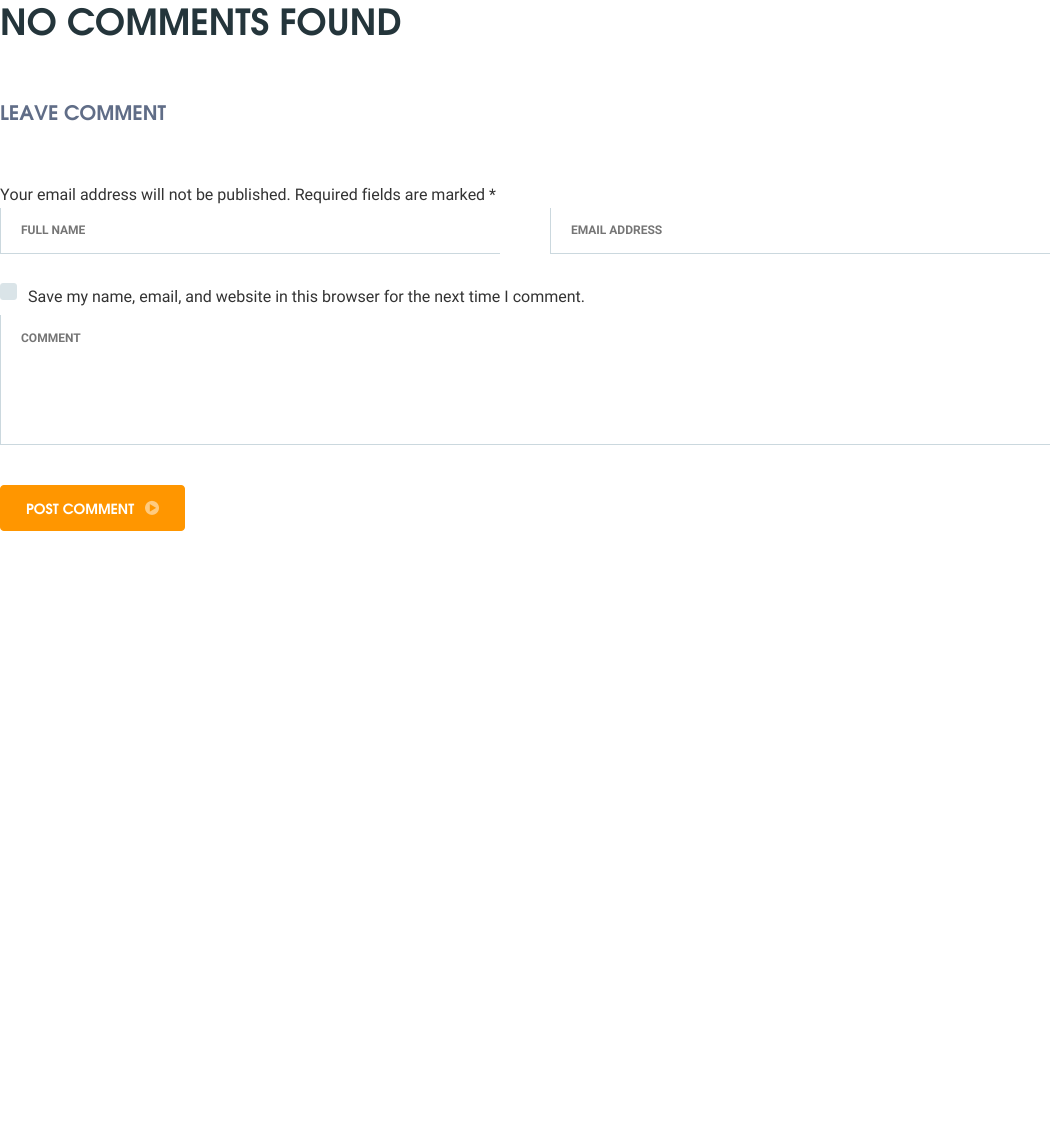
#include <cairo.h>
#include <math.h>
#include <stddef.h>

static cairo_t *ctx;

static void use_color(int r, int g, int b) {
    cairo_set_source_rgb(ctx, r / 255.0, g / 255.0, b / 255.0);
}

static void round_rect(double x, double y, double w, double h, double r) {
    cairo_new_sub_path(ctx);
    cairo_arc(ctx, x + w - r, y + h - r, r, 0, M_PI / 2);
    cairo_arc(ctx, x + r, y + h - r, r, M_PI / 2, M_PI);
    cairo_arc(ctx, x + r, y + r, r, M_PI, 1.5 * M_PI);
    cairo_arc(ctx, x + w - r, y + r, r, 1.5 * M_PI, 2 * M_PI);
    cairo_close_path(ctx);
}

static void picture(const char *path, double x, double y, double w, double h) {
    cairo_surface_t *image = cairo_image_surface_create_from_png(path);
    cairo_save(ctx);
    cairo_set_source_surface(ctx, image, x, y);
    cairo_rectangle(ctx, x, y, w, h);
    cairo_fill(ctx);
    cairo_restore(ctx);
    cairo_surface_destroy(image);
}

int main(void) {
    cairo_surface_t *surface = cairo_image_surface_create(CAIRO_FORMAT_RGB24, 1050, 1143);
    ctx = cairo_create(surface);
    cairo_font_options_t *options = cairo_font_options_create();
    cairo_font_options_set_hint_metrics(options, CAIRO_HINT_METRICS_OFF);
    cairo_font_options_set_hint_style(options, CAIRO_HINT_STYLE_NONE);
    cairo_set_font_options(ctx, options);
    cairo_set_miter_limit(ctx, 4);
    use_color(255, 255, 255);
    cairo_paint(ctx);
    cairo_select_font_face(ctx, "TeX Gyre Adventor", CAIRO_FONT_SLANT_NORMAL, CAIRO_FONT_WEIGHT_BOLD);
    cairo_set_font_size(ctx, 36);
    use_color(36, 53, 59);
    cairo_move_to(ctx, 0, 35);
    cairo_show_text(ctx, "NO COMMENTS FOUND");
    cairo_set_font_size(ctx, 20);
    use_color(96, 109, 135);
    cairo_move_to(ctx, 0, 120);
    cairo_show_text(ctx, "LEAVE COMMENT");
    cairo_select_font_face(ctx, "Roboto", CAIRO_FONT_SLANT_NORMAL, CAIRO_FONT_WEIGHT_NORMAL);
    cairo_set_font_size(ctx, 16);
    use_color(51, 51, 51);
    cairo_move_to(ctx, 0, 200);
    cairo_show_text(ctx, "Your email address will not be published. Required fields are marked *");
    use_color(203, 216, 222);
    cairo_rectangle(ctx, 0, 253, 500, 1);
    cairo_fill(ctx);
    cairo_rectangle(ctx, 0, 208, 1, 46);
    cairo_fill(ctx);
    cairo_select_font_face(ctx, "Roboto", CAIRO_FONT_SLANT_NORMAL, CAIRO_FONT_WEIGHT_BOLD);
    cairo_set_font_size(ctx, 12);
    use_color(117, 117, 117);
    cairo_move_to(ctx, 21, 234);
    cairo_show_text(ctx, "FULL NAME");
    use_color(203, 216, 222);
    cairo_rectangle(ctx, 550, 253, 500, 1);
    cairo_fill(ctx);
    cairo_rectangle(ctx, 550, 208, 1, 46);
    cairo_fill(ctx);
    use_color(117, 117, 117);
    cairo_move_to(ctx, 571, 234);
    cairo_show_text(ctx, "EMAIL ADDRESS");
    use_color(218, 228, 232);
    round_rect(0, 283, 17, 17, 3);
    cairo_fill(ctx);
    cairo_select_font_face(ctx, "Roboto", CAIRO_FONT_SLANT_NORMAL, CAIRO_FONT_WEIGHT_NORMAL);
    cairo_set_font_size(ctx, 16);
    use_color(51, 51, 51);
    cairo_move_to(ctx, 28, 302);
    cairo_show_text(ctx, "Save my name, email, and website in this browser for the next time I comment.");
    use_color(203, 216, 222);
    cairo_rectangle(ctx, 0, 444, 1050, 1);
    cairo_fill(ctx);
    cairo_rectangle(ctx, 0, 315, 1, 130);
    cairo_fill(ctx);
    cairo_select_font_face(ctx, "Roboto", CAIRO_FONT_SLANT_NORMAL, CAIRO_FONT_WEIGHT_BOLD);
    cairo_set_font_size(ctx, 12);
    use_color(117, 117, 117);
    cairo_move_to(ctx, 21, 342);
    cairo_show_text(ctx, "COMMENT");
    use_color(255, 150, 0);
    round_rect(0, 485, 185, 46, 4);
    cairo_fill(ctx);
    cairo_select_font_face(ctx, "TeX Gyre Adventor", CAIRO_FONT_SLANT_NORMAL, CAIRO_FONT_WEIGHT_BOLD);
    cairo_set_font_size(ctx, 14);
    use_color(255, 255, 255);
    cairo_move_to(ctx, 26, 514);
    cairo_show_text(ctx, "POST COMMENT");
    picture("img1.png", 145, 500, 14, 15);
    cairo_surface_write_to_png(surface, "result.png");
    cairo_font_options_destroy(options);
    cairo_destroy(ctx);
    cairo_surface_destroy(surface);
    return 0;
}
